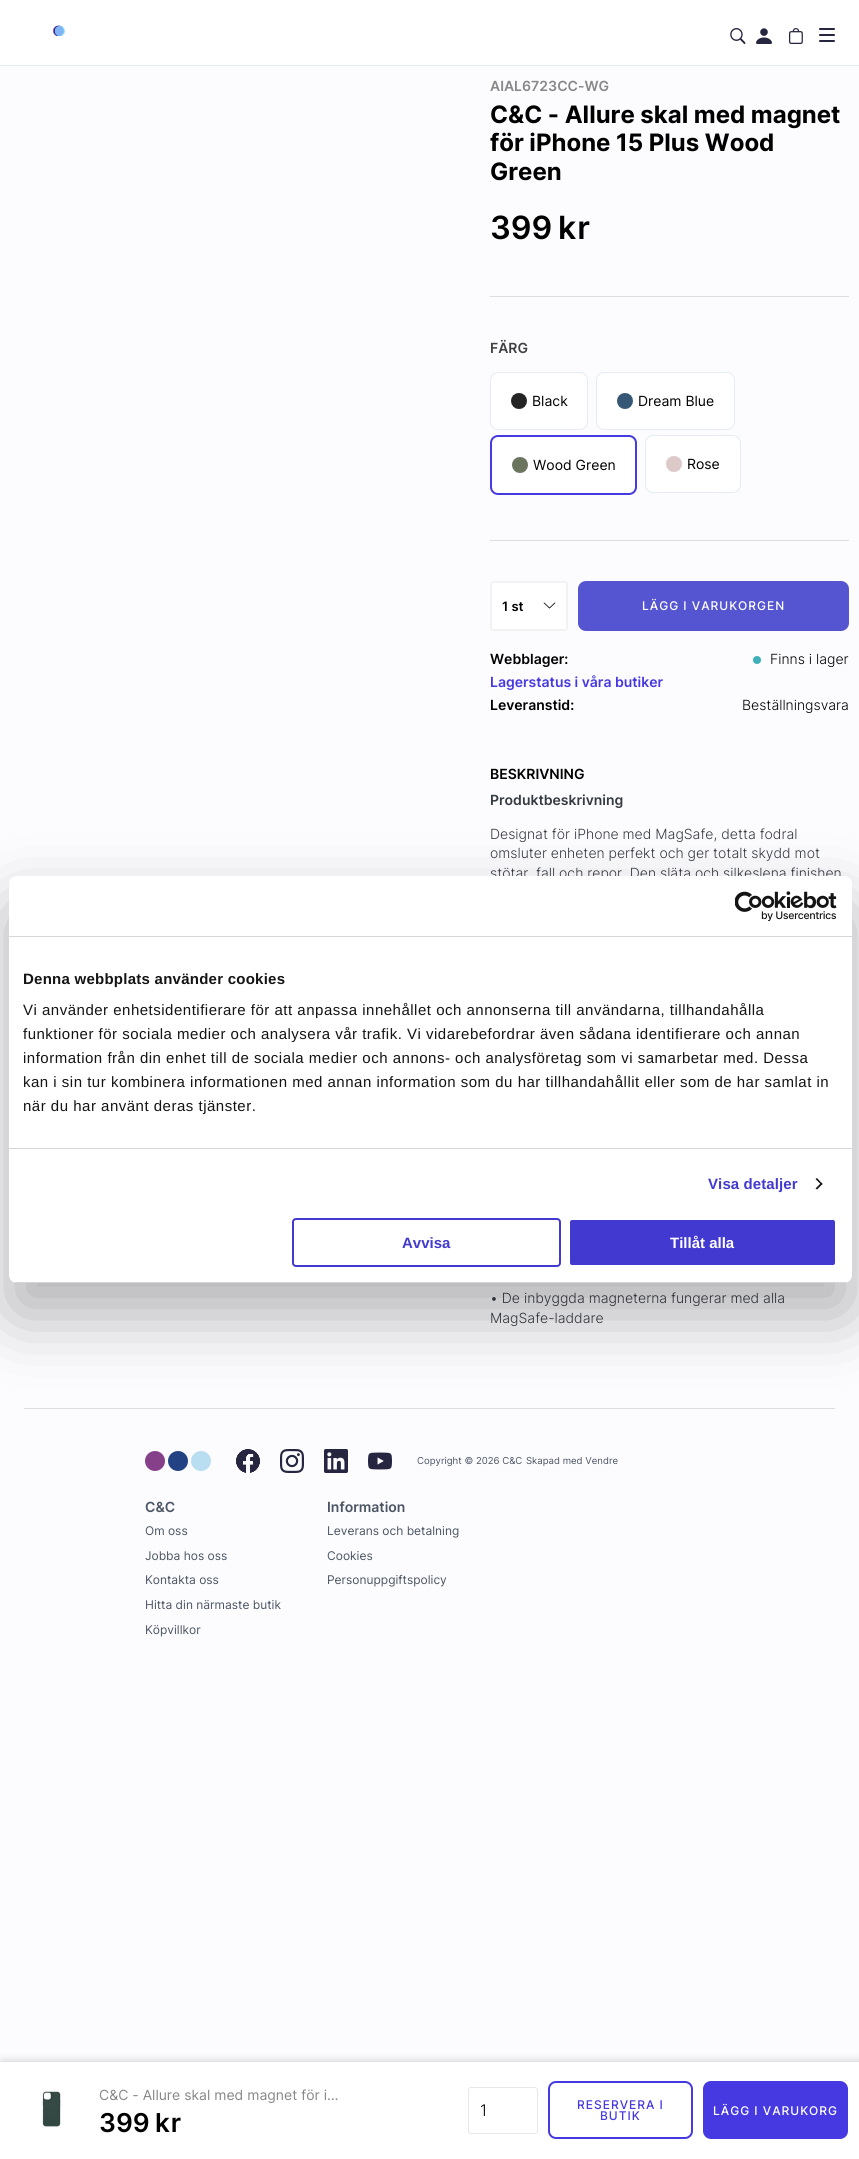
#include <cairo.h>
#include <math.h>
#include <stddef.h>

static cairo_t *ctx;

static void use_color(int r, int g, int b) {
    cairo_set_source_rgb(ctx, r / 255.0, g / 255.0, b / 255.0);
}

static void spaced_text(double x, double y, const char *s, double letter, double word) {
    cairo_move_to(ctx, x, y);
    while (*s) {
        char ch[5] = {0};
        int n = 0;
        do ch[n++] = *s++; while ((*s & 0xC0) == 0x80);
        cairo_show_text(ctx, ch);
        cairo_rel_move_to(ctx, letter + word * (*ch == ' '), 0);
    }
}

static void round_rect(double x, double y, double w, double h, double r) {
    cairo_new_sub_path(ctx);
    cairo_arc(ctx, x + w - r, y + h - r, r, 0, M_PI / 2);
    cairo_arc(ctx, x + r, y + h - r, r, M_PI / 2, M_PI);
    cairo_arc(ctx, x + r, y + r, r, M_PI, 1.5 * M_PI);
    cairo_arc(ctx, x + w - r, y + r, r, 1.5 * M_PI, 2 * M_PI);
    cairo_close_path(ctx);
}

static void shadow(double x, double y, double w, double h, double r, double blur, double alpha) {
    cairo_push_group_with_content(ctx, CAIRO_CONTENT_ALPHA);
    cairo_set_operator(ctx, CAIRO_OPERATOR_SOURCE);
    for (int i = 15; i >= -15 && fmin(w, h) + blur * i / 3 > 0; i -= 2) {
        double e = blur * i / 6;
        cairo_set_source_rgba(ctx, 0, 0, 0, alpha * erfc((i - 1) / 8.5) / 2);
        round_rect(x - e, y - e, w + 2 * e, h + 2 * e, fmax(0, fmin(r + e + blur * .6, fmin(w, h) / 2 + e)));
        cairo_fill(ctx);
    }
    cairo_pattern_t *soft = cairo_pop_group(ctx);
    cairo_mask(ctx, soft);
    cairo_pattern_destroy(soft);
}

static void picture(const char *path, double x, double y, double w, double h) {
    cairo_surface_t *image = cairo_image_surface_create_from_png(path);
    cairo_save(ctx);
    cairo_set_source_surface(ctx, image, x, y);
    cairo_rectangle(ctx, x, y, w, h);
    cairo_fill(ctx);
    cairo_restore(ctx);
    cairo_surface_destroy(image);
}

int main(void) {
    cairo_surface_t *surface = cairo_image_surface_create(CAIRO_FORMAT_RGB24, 859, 2159);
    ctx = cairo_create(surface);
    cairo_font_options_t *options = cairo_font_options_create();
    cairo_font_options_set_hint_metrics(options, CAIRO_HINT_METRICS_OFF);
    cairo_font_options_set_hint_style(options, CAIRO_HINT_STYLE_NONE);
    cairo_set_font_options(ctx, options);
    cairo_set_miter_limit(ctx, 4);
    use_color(252, 252, 255);
    cairo_paint(ctx);
    use_color(255, 255, 255);
    cairo_rectangle(ctx, 0, 0, 859, 65);
    cairo_fill(ctx);
    use_color(230, 235, 244);
    cairo_rectangle(ctx, 0, 65, 859, 1);
    cairo_fill(ctx);
    picture("img1.png", 53, 25, 12, 11);
    picture("img2.png", 730, 28, 16, 16);
    picture("img3.png", 756, 28, 16, 16);
    picture("img4.png", 789, 28, 14, 16);
    use_color(38, 38, 65);
    round_rect(819, 28, 16, 2, 1);
    cairo_fill(ctx);
    round_rect(819, 34, 16, 2, 1);
    cairo_fill(ctx);
    round_rect(819, 40, 16, 2, 1);
    cairo_fill(ctx);
    cairo_select_font_face(ctx, "Inter SemiBold", CAIRO_FONT_SLANT_NORMAL, CAIRO_FONT_WEIGHT_NORMAL);
    cairo_set_font_size(ctx, 14);
    use_color(136, 136, 136);
    cairo_move_to(ctx, 490, 91);
    cairo_show_text(ctx, "AIAL6723CC-WG");
    cairo_select_font_face(ctx, "Inter", CAIRO_FONT_SLANT_NORMAL, CAIRO_FONT_WEIGHT_BOLD);
    cairo_set_font_size(ctx, 24);
    use_color(0, 0, 0);
    cairo_move_to(ctx, 490, 123);
    cairo_show_text(ctx, "C&C - Allure skal med magnet");
    cairo_move_to(ctx, 490, 151);
    cairo_show_text(ctx, "för iPhone 15 Plus Wood");
    cairo_move_to(ctx, 490, 180);
    cairo_show_text(ctx, "Green");
    cairo_select_font_face(ctx, "Inter SemiBold", CAIRO_FONT_SLANT_NORMAL, CAIRO_FONT_WEIGHT_NORMAL);
    cairo_set_font_size(ctx, 32);
    cairo_move_to(ctx, 490, 239);
    cairo_show_text(ctx, "399");
    spaced_text(558, 239, "kr", 1, 0);
    use_color(221, 221, 221);
    cairo_rectangle(ctx, 490, 296, 359, 1);
    cairo_fill(ctx);
    cairo_set_font_size(ctx, 14);
    use_color(65, 65, 65);
    cairo_move_to(ctx, 490, 353);
    cairo_show_text(ctx, "FÄRG");
    use_color(255, 255, 255);
    round_rect(490.5, 372.5, 97, 57, 7.5);
    cairo_fill_preserve(ctx);
    use_color(230, 235, 244);
    cairo_set_line_width(ctx, 1);
    cairo_stroke(ctx);
    picture("img5.png", 511, 393, 16, 16);
    cairo_select_font_face(ctx, "Inter", CAIRO_FONT_SLANT_NORMAL, CAIRO_FONT_WEIGHT_NORMAL);
    use_color(0, 0, 0);
    cairo_move_to(ctx, 532, 406);
    cairo_show_text(ctx, "Black");
    use_color(255, 255, 255);
    round_rect(596.5, 372.5, 138, 57, 7.5);
    cairo_fill_preserve(ctx);
    use_color(230, 235, 244);
    cairo_stroke(ctx);
    picture("img6.png", 617, 393, 16, 16);
    use_color(0, 0, 0);
    cairo_move_to(ctx, 638, 406);
    cairo_show_text(ctx, "Dream Blue");
    use_color(255, 255, 255);
    round_rect(491, 436, 145, 58, 7);
    cairo_fill_preserve(ctx);
    use_color(70, 57, 225);
    cairo_set_line_width(ctx, 2);
    cairo_stroke(ctx);
    picture("img7.png", 512, 457, 16, 16);
    use_color(0, 0, 0);
    cairo_move_to(ctx, 533, 470);
    cairo_show_text(ctx, "Wood Green");
    use_color(255, 255, 255);
    round_rect(645.5, 435.5, 95, 57, 7.5);
    cairo_fill_preserve(ctx);
    use_color(230, 235, 244);
    cairo_set_line_width(ctx, 1);
    cairo_stroke(ctx);
    picture("img8.png", 666, 456, 16, 16);
    use_color(0, 0, 0);
    cairo_move_to(ctx, 687, 469);
    cairo_show_text(ctx, "Rose");
    use_color(221, 221, 221);
    cairo_rectangle(ctx, 490, 540, 359, 1);
    cairo_fill(ctx);
    use_color(255, 255, 255);
    round_rect(490, 581, 78, 50, 3);
    cairo_fill(ctx);
    picture("img9.png", 543, 602, 13, 7);
    round_rect(491, 582, 76, 48, 2);
    use_color(242, 242, 244);
    cairo_set_line_width(ctx, 2);
    cairo_stroke(ctx);
    cairo_select_font_face(ctx, "Inter SemiBold", CAIRO_FONT_SLANT_NORMAL, CAIRO_FONT_WEIGHT_NORMAL);
    cairo_set_font_size(ctx, 13);
    use_color(0, 0, 0);
    cairo_move_to(ctx, 502, 611);
    cairo_show_text(ctx, "1 st");
    use_color(86, 85, 209);
    round_rect(578, 581, 271, 50, 8);
    cairo_fill(ctx);
    cairo_select_font_face(ctx, "Inter Medium", CAIRO_FONT_SLANT_NORMAL, CAIRO_FONT_WEIGHT_NORMAL);
    cairo_set_font_size(ctx, 12);
    use_color(255, 255, 255);
    spaced_text(642, 610, "LÄGG I VARUKORGEN", 1, 0);
    cairo_select_font_face(ctx, "Inter SemiBold", CAIRO_FONT_SLANT_NORMAL, CAIRO_FONT_WEIGHT_NORMAL);
    cairo_set_font_size(ctx, 14);
    use_color(0, 0, 0);
    cairo_move_to(ctx, 490, 664);
    cairo_show_text(ctx, "Webblager:");
    use_color(62, 176, 185);
    cairo_new_path(ctx);
    cairo_arc(ctx, 757, 660, 4, 0, 2 * M_PI);
    cairo_fill(ctx);
    cairo_select_font_face(ctx, "Inter Light", CAIRO_FONT_SLANT_NORMAL, CAIRO_FONT_WEIGHT_NORMAL);
    use_color(0, 0, 0);
    cairo_move_to(ctx, 770, 664);
    cairo_show_text(ctx, "Finns i lager");
    cairo_select_font_face(ctx, "Inter SemiBold", CAIRO_FONT_SLANT_NORMAL, CAIRO_FONT_WEIGHT_NORMAL);
    use_color(70, 57, 225);
    cairo_move_to(ctx, 490, 687);
    cairo_show_text(ctx, "Lagerstatus i våra butiker");
    use_color(0, 0, 0);
    cairo_move_to(ctx, 490, 710);
    cairo_show_text(ctx, "Leveranstid:");
    cairo_select_font_face(ctx, "Inter Light", CAIRO_FONT_SLANT_NORMAL, CAIRO_FONT_WEIGHT_NORMAL);
    cairo_move_to(ctx, 742, 710);
    cairo_show_text(ctx, "Beställningsvara");
    use_color(0, 0, 0);
    shadow(2, 2064, 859, 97, 0, 5.5, 0.3);
    use_color(255, 255, 255);
    cairo_rectangle(ctx, 0, 2062, 859, 97);
    cairo_fill(ctx);
    picture("img10.png", 42, 2090, 19, 38);
    cairo_select_font_face(ctx, "Inter", CAIRO_FONT_SLANT_NORMAL, CAIRO_FONT_WEIGHT_NORMAL);
    use_color(136, 136, 136);
    cairo_move_to(ctx, 99, 2100);
    cairo_show_text(ctx, "C&C - Allure skal med magnet för i…");
    cairo_select_font_face(ctx, "Inter SemiBold", CAIRO_FONT_SLANT_NORMAL, CAIRO_FONT_WEIGHT_NORMAL);
    cairo_set_font_size(ctx, 26);
    use_color(0, 0, 0);
    cairo_move_to(ctx, 99, 2132);
    cairo_show_text(ctx, "399");
    spaced_text(155, 2132, "kr", 1, 0);
    round_rect(468.5, 2087.5, 69, 46, 2.5);
    use_color(232, 232, 232);
    cairo_set_line_width(ctx, 1);
    cairo_stroke(ctx);
    cairo_select_font_face(ctx, "Inter Light", CAIRO_FONT_SLANT_NORMAL, CAIRO_FONT_WEIGHT_NORMAL);
    cairo_set_font_size(ctx, 16);
    use_color(0, 0, 0);
    cairo_move_to(ctx, 480, 2116);
    cairo_show_text(ctx, "1");
    round_rect(549, 2082, 143, 56, 7);
    use_color(70, 57, 225);
    cairo_set_line_width(ctx, 2);
    cairo_stroke(ctx);
    cairo_select_font_face(ctx, "Inter Medium", CAIRO_FONT_SLANT_NORMAL, CAIRO_FONT_WEIGHT_NORMAL);
    cairo_set_font_size(ctx, 12);
    spaced_text(577, 2109, "RESERVERA I", 1, 0);
    spaced_text(600, 2120, "BUTIK", 1, 0);
    round_rect(703, 2081, 145, 58, 8);
    cairo_fill(ctx);
    use_color(255, 255, 255);
    spaced_text(713, 2115, "LÄGG I VARUKORG", 1, 0);
    cairo_select_font_face(ctx, "Inter SemiBold", CAIRO_FONT_SLANT_NORMAL, CAIRO_FONT_WEIGHT_NORMAL);
    cairo_set_font_size(ctx, 14);
    use_color(0, 0, 0);
    cairo_move_to(ctx, 490, 779);
    cairo_show_text(ctx, "BESKRIVNING");
    use_color(54, 58, 65);
    cairo_move_to(ctx, 490, 805);
    cairo_show_text(ctx, "Produktbeskrivning");
    cairo_select_font_face(ctx, "Inter Light", CAIRO_FONT_SLANT_NORMAL, CAIRO_FONT_WEIGHT_NORMAL);
    cairo_move_to(ctx, 490, 839);
    cairo_show_text(ctx, "Designat för iPhone med MagSafe, detta fodral");
    cairo_move_to(ctx, 490, 858);
    cairo_show_text(ctx, "omsluter enheten perfekt och ger totalt skydd mot");
    cairo_move_to(ctx, 490, 878);
    cairo_show_text(ctx, "stötar, fall och repor. Den släta och silkeslena finishen");
    cairo_move_to(ctx, 490, 1303);
    cairo_show_text(ctx, "• De inbyggda magneterna fungerar med alla");
    cairo_move_to(ctx, 490, 1323);
    cairo_show_text(ctx, "MagSafe-laddare");
    use_color(221, 221, 221);
    cairo_rectangle(ctx, 24, 1408, 811, 1);
    cairo_fill(ctx);
    use_color(0, 0, 0);
    shadow(9, 908, 843, 407, 8, 34, 0.3);
    use_color(255, 255, 255);
    round_rect(9, 876, 843, 407, 8);
    cairo_fill(ctx);
    use_color(214, 214, 214);
    cairo_rectangle(ctx, 9, 936, 843, 1);
    cairo_fill(ctx);
    picture("img11.png", 735, 891, 102, 30);
    cairo_rectangle(ctx, 9, 1148, 843, 1);
    cairo_fill(ctx);
    cairo_select_font_face(ctx, "Liberation Sans", CAIRO_FONT_SLANT_NORMAL, CAIRO_FONT_WEIGHT_BOLD);
    cairo_set_font_size(ctx, 15);
    use_color(20, 20, 20);
    spaced_text(23, 984, "Denna webbplats använder cookies", 0.25, 0);
    cairo_select_font_face(ctx, "Liberation Sans", CAIRO_FONT_SLANT_NORMAL, CAIRO_FONT_WEIGHT_NORMAL);
    spaced_text(23, 1015, "Vi använder enhetsidentifierare för att anpassa innehållet och annonserna till användarna, tillhandahålla", 0.5, 0);
    spaced_text(23, 1039, "funktioner för sociala medier och analysera vår trafik. Vi vidarebefordrar även sådana identifierare och annan", 0.5, 0);
    spaced_text(23, 1063, "information från din enhet till de sociala medier och annons- och analysföretag som vi samarbetar med. Dessa", 0.5, 0);
    spaced_text(23, 1087, "kan i sin tur kombinera informationen med annan information som du har tillhandahållit eller som de har samlat in", 0.5, 0);
    spaced_text(23, 1111, "när du har använt deras tjänster.", 0.5, 0);
    cairo_select_font_face(ctx, "Liberation Sans", CAIRO_FONT_SLANT_NORMAL, CAIRO_FONT_WEIGHT_BOLD);
    use_color(66, 58, 208);
    spaced_text(708, 1189, "Visa detaljer", 0.1, 0);
    use_color(20, 20, 20);
    cairo_new_path(ctx);
    cairo_move_to(ctx, 817, 1178);
    cairo_line_to(ctx, 822.5, 1184);
    cairo_line_to(ctx, 821.5, 1185);
    cairo_line_to(ctx, 815.5, 1179);
    cairo_close_path(ctx);
    cairo_fill(ctx);
    cairo_new_path(ctx);
    cairo_move_to(ctx, 821.5, 1182.5);
    cairo_line_to(ctx, 822.5, 1184);
    cairo_line_to(ctx, 817, 1189.5);
    cairo_line_to(ctx, 815.5, 1188.5);
    cairo_close_path(ctx);
    cairo_fill(ctx);
    cairo_save(ctx);
    round_rect(9, 876, 843, 407, 8);
    cairo_clip(ctx);
    use_color(214, 214, 214);
    cairo_rectangle(ctx, 9, 1282, 843, 1);
    cairo_fill(ctx);
    cairo_restore(ctx);
    round_rect(293, 1219, 267, 47, 3);
    use_color(66, 58, 208);
    cairo_stroke(ctx);
    cairo_move_to(ctx, 402, 1248);
    cairo_show_text(ctx, "Avvisa");
    round_rect(569, 1219, 267, 47, 3);
    cairo_fill_preserve(ctx);
    use_color(255, 255, 255);
    cairo_stroke(ctx);
    cairo_move_to(ctx, 670, 1248);
    cairo_show_text(ctx, "Tillåt alla");
    use_color(134, 63, 137);
    cairo_new_path(ctx);
    cairo_arc(ctx, 155, 1461, 10, 0, 2 * M_PI);
    cairo_fill(ctx);
    use_color(34, 66, 132);
    cairo_arc(ctx, 178, 1461, 10, 0, 2 * M_PI);
    cairo_fill(ctx);
    use_color(185, 221, 241);
    cairo_arc(ctx, 201, 1461, 10, 0, 2 * M_PI);
    cairo_fill(ctx);
    picture("img12.png", 236, 1449, 24, 24);
    picture("img13.png", 280, 1449, 24, 24);
    picture("img14.png", 324, 1449, 24, 24);
    picture("img15.png", 368, 1452, 24, 18);
    cairo_select_font_face(ctx, "Inter", CAIRO_FONT_SLANT_NORMAL, CAIRO_FONT_WEIGHT_NORMAL);
    cairo_set_font_size(ctx, 9.6);
    use_color(75, 85, 99);
    cairo_move_to(ctx, 417, 1464);
    cairo_show_text(ctx, "Copyright © 2026 C&C");
    cairo_move_to(ctx, 526, 1464);
    cairo_show_text(ctx, "Skapad med Vendre");
    cairo_select_font_face(ctx, "Inter SemiBold", CAIRO_FONT_SLANT_NORMAL, CAIRO_FONT_WEIGHT_NORMAL);
    cairo_set_font_size(ctx, 14);
    cairo_move_to(ctx, 145, 1512);
    cairo_show_text(ctx, "C&C");
    cairo_select_font_face(ctx, "Inter", CAIRO_FONT_SLANT_NORMAL, CAIRO_FONT_WEIGHT_NORMAL);
    cairo_set_font_size(ctx, 12);
    cairo_move_to(ctx, 145, 1535);
    cairo_show_text(ctx, "Om oss");
    cairo_move_to(ctx, 145, 1560);
    cairo_show_text(ctx, "Jobba hos oss");
    cairo_move_to(ctx, 145, 1584);
    cairo_show_text(ctx, "Kontakta oss");
    cairo_move_to(ctx, 145, 1609);
    cairo_show_text(ctx, "Hitta din närmaste butik");
    cairo_move_to(ctx, 145, 1634);
    cairo_show_text(ctx, "Köpvillkor");
    cairo_select_font_face(ctx, "Inter SemiBold", CAIRO_FONT_SLANT_NORMAL, CAIRO_FONT_WEIGHT_NORMAL);
    cairo_set_font_size(ctx, 14);
    cairo_move_to(ctx, 327, 1512);
    cairo_show_text(ctx, "Information");
    cairo_select_font_face(ctx, "Inter", CAIRO_FONT_SLANT_NORMAL, CAIRO_FONT_WEIGHT_NORMAL);
    cairo_set_font_size(ctx, 12);
    cairo_move_to(ctx, 327, 1535);
    cairo_show_text(ctx, "Leverans och betalning");
    cairo_move_to(ctx, 327, 1560);
    cairo_show_text(ctx, "Cookies");
    cairo_move_to(ctx, 327, 1584);
    cairo_show_text(ctx, "Personuppgiftspolicy");
    cairo_surface_write_to_png(surface, "result.png");
    cairo_font_options_destroy(options);
    cairo_destroy(ctx);
    cairo_surface_destroy(surface);
    return 0;
}
